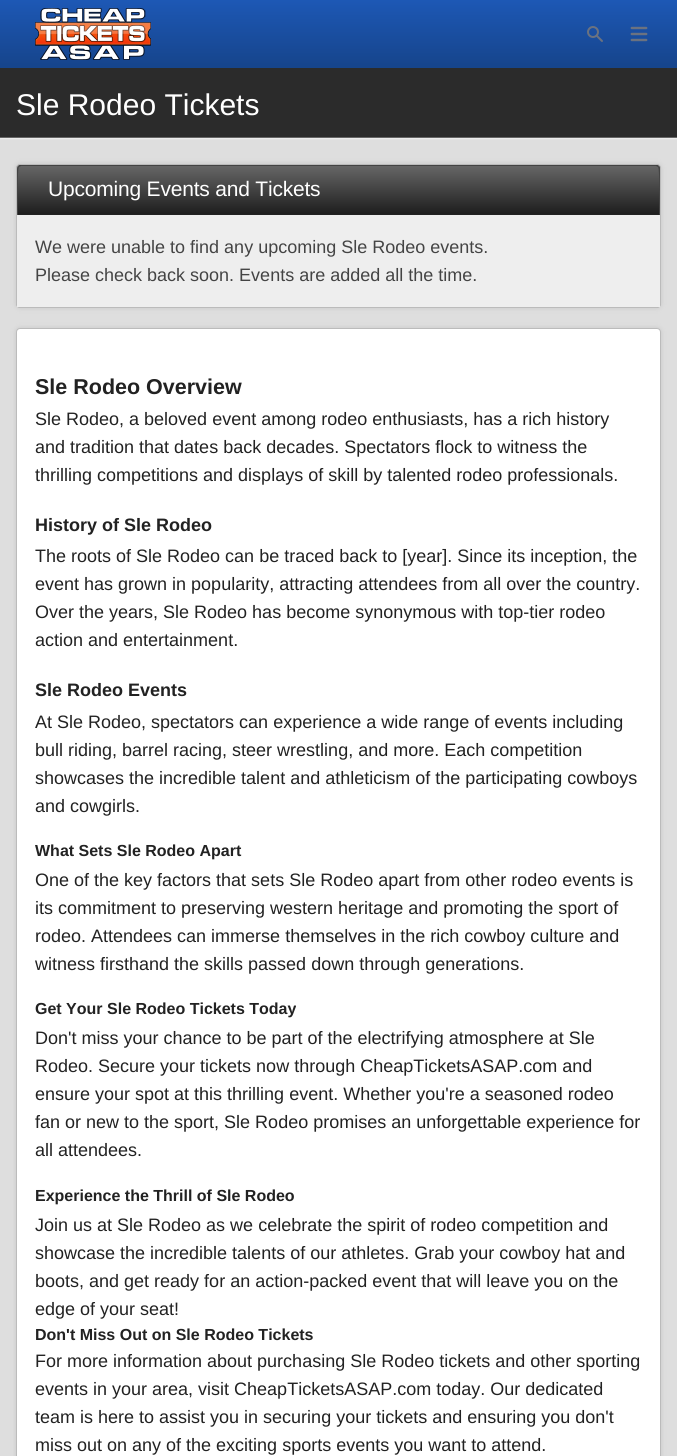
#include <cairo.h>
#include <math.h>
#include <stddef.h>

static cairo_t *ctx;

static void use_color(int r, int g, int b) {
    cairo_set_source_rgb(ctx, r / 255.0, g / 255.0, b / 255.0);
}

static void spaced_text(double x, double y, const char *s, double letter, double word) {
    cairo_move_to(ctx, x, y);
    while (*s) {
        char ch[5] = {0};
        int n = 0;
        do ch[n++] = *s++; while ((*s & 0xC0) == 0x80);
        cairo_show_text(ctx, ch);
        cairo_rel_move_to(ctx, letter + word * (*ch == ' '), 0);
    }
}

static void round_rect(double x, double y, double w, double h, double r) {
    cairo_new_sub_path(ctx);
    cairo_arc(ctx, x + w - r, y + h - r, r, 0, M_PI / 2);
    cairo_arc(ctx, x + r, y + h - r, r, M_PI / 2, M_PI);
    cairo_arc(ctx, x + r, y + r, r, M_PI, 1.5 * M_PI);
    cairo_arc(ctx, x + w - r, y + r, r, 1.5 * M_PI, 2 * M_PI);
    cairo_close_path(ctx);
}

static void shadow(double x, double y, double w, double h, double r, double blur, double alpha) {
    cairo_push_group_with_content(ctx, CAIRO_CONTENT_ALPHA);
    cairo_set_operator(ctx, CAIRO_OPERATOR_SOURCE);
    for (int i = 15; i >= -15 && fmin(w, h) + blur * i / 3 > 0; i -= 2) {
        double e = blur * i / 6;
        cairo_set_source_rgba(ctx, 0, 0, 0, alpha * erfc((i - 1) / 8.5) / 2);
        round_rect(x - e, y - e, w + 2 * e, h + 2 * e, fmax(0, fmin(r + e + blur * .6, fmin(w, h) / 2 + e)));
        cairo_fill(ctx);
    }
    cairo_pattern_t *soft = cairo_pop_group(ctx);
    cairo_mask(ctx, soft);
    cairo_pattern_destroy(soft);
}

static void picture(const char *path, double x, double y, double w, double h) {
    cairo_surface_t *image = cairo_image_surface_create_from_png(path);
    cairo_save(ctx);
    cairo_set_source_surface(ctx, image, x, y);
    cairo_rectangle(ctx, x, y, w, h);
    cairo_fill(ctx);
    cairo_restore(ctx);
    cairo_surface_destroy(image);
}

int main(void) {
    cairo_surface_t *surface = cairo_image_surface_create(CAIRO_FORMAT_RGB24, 677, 1456);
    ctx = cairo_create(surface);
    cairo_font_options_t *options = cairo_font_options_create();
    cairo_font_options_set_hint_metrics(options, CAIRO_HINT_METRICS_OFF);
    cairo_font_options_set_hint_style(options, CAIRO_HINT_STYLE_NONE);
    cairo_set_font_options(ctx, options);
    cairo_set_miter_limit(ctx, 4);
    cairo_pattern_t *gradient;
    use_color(222, 222, 222);
    cairo_paint(ctx);
    gradient = cairo_pattern_create_linear(339, 0, 339, 68);
    cairo_pattern_add_color_stop_rgba(gradient, 0, 0.114, 0.345, 0.71, 1);
    cairo_pattern_add_color_stop_rgba(gradient, 1, 0.086, 0.267, 0.545, 1);
    cairo_set_source(ctx, gradient);
    cairo_pattern_destroy(gradient);
    cairo_rectangle(ctx, 0, 0, 677, 68);
    cairo_fill(ctx);
    picture("img1.png", 35, 8, 116, 52);
    picture("img2.png", 587, 26, 16, 16);
    picture("img3.png", 630, 26, 18, 16);
    use_color(238, 238, 238);
    shadow(0, 69, 677, 70, 0, 0.5, 1);
    use_color(43, 43, 43);
    cairo_rectangle(ctx, 0, 68, 677, 69);
    cairo_fill(ctx);
    use_color(102, 102, 102);
    cairo_rectangle(ctx, 0, 137, 677, 1);
    cairo_fill(ctx);
    cairo_select_font_face(ctx, "Liberation Sans", CAIRO_FONT_SLANT_NORMAL, CAIRO_FONT_WEIGHT_NORMAL);
    cairo_set_font_size(ctx, 30);
    use_color(255, 255, 255);
    cairo_move_to(ctx, 16, 115);
    cairo_show_text(ctx, "Sle Rodeo Tickets");
    use_color(199, 199, 199);
    shadow(16, 164, 645, 144, 4, 2.5, 1);
    use_color(119, 119, 119);
    round_rect(16.5, 164.5, 644, 143, 3.5);
    cairo_fill_preserve(ctx);
    use_color(187, 187, 187);
    cairo_set_line_width(ctx, 1);
    cairo_stroke(ctx);
    cairo_save(ctx);
    cairo_new_path(ctx);
    cairo_move_to(ctx, 21, 165);
    cairo_line_to(ctx, 656, 165);
    cairo_curve_to(ctx, 658, 165, 660, 167, 660, 169);
    cairo_line_to(ctx, 660, 215);
    cairo_line_to(ctx, 17, 215);
    cairo_line_to(ctx, 17, 169);
    cairo_curve_to(ctx, 17, 167, 19, 165, 21, 165);
    cairo_close_path(ctx);
    cairo_clip(ctx);
    gradient = cairo_pattern_create_linear(339, 118, 339, 166);
    cairo_pattern_add_color_stop_rgba(gradient, 0, 0.4, 0.4, 0.4, 1);
    cairo_pattern_add_color_stop_rgba(gradient, 1, 0.118, 0.118, 0.118, 1);
    cairo_set_source(ctx, gradient);
    cairo_pattern_destroy(gradient);
    cairo_rectangle(ctx, 17, 165, 643, 1);
    cairo_fill(ctx);
    gradient = cairo_pattern_create_linear(339, 166, 339, 214);
    cairo_pattern_add_color_stop_rgba(gradient, 0, 0.4, 0.4, 0.4, 1);
    cairo_pattern_add_color_stop_rgba(gradient, 1, 0.118, 0.118, 0.118, 1);
    cairo_set_source(ctx, gradient);
    cairo_pattern_destroy(gradient);
    cairo_rectangle(ctx, 17, 166, 643, 48);
    cairo_fill(ctx);
    cairo_restore(ctx);
    use_color(68, 68, 68);
    cairo_new_path(ctx);
    cairo_move_to(ctx, 21, 165);
    cairo_line_to(ctx, 18, 166);
    cairo_line_to(ctx, 19, 167);
    cairo_line_to(ctx, 21, 166);
    cairo_line_to(ctx, 656, 166);
    cairo_line_to(ctx, 658, 167);
    cairo_line_to(ctx, 659, 166);
    cairo_line_to(ctx, 656, 165);
    cairo_close_path(ctx);
    cairo_fill(ctx);
    cairo_new_path(ctx);
    cairo_move_to(ctx, 660, 215);
    cairo_line_to(ctx, 660, 169);
    cairo_curve_to(ctx, 660, 168, 660, 167, 659, 166);
    cairo_line_to(ctx, 658, 167);
    cairo_curve_to(ctx, 660, 169, 659, 208, 659, 214);
    cairo_close_path(ctx);
    cairo_fill(ctx);
    use_color(34, 34, 34);
    cairo_new_path(ctx);
    cairo_move_to(ctx, 660, 215);
    cairo_line_to(ctx, 659, 214);
    cairo_line_to(ctx, 18, 214);
    cairo_line_to(ctx, 17, 215);
    cairo_close_path(ctx);
    cairo_fill(ctx);
    use_color(68, 68, 68);
    cairo_new_path(ctx);
    cairo_move_to(ctx, 17, 215);
    cairo_line_to(ctx, 18, 214);
    cairo_curve_to(ctx, 18, 208, 17, 169, 19, 167);
    cairo_line_to(ctx, 18, 166);
    cairo_line_to(ctx, 17, 169);
    cairo_close_path(ctx);
    cairo_fill(ctx);
    cairo_set_font_size(ctx, 21);
    use_color(255, 255, 255);
    spaced_text(48, 196, "Upcoming Events and Tickets", -0.2, 0);
    use_color(238, 238, 238);
    cairo_rectangle(ctx, 17, 215, 643, 92);
    cairo_fill(ctx);
    cairo_set_font_size(ctx, 18);
    use_color(68, 68, 68);
    cairo_move_to(ctx, 35, 253);
    cairo_show_text(ctx, "We were unable to find any upcoming Sle Rodeo events.");
    cairo_move_to(ctx, 35, 281);
    cairo_show_text(ctx, "Please check back soon. Events are added all the time.");
    use_color(199, 199, 199);
    shadow(16, 328, 645, 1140, 4, 2.5, 1);
    use_color(255, 255, 255);
    round_rect(16.5, 328.5, 644, 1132, 3.5);
    cairo_fill_preserve(ctx);
    use_color(187, 187, 187);
    cairo_stroke(ctx);
    cairo_select_font_face(ctx, "Liberation Sans", CAIRO_FONT_SLANT_NORMAL, CAIRO_FONT_WEIGHT_BOLD);
    cairo_set_font_size(ctx, 21.5);
    use_color(34, 34, 34);
    cairo_move_to(ctx, 35, 394);
    cairo_show_text(ctx, "Sle Rodeo Overview");
    cairo_select_font_face(ctx, "Liberation Sans", CAIRO_FONT_SLANT_NORMAL, CAIRO_FONT_WEIGHT_NORMAL);
    cairo_set_font_size(ctx, 18);
    cairo_move_to(ctx, 35, 425);
    cairo_show_text(ctx, "Sle Rodeo, a beloved event among rodeo enthusiasts, has a rich history");
    cairo_move_to(ctx, 35, 453);
    cairo_show_text(ctx, "and tradition that dates back decades. Spectators flock to witness the");
    cairo_move_to(ctx, 35, 481);
    cairo_show_text(ctx, "thrilling competitions and displays of skill by talented rodeo professionals.");
    cairo_select_font_face(ctx, "Liberation Sans", CAIRO_FONT_SLANT_NORMAL, CAIRO_FONT_WEIGHT_BOLD);
    cairo_move_to(ctx, 35, 531);
    cairo_show_text(ctx, "History of Sle Rodeo");
    cairo_select_font_face(ctx, "Liberation Sans", CAIRO_FONT_SLANT_NORMAL, CAIRO_FONT_WEIGHT_NORMAL);
    cairo_move_to(ctx, 35, 562);
    cairo_show_text(ctx, "The roots of Sle Rodeo can be traced back to [year]. Since its inception, the");
    cairo_move_to(ctx, 35, 590);
    cairo_show_text(ctx, "event has grown in popularity, attracting attendees from all over the country.");
    cairo_move_to(ctx, 35, 618);
    cairo_show_text(ctx, "Over the years, Sle Rodeo has become synonymous with top-tier rodeo");
    cairo_move_to(ctx, 35, 646);
    cairo_show_text(ctx, "action and entertainment.");
    cairo_select_font_face(ctx, "Liberation Sans", CAIRO_FONT_SLANT_NORMAL, CAIRO_FONT_WEIGHT_BOLD);
    cairo_move_to(ctx, 35, 696);
    cairo_show_text(ctx, "Sle Rodeo Events");
    cairo_select_font_face(ctx, "Liberation Sans", CAIRO_FONT_SLANT_NORMAL, CAIRO_FONT_WEIGHT_NORMAL);
    cairo_move_to(ctx, 35, 728);
    cairo_show_text(ctx, "At Sle Rodeo, spectators can experience a wide range of events including");
    cairo_move_to(ctx, 35, 756);
    cairo_show_text(ctx, "bull riding, barrel racing, steer wrestling, and more. Each competition");
    cairo_move_to(ctx, 35, 784);
    cairo_show_text(ctx, "showcases the incredible talent and athleticism of the participating cowboys");
    cairo_move_to(ctx, 35, 812);
    cairo_show_text(ctx, "and cowgirls.");
    cairo_select_font_face(ctx, "Liberation Sans", CAIRO_FONT_SLANT_NORMAL, CAIRO_FONT_WEIGHT_BOLD);
    cairo_set_font_size(ctx, 16);
    cairo_move_to(ctx, 35, 856);
    cairo_show_text(ctx, "What Sets Sle Rodeo Apart");
    cairo_select_font_face(ctx, "Liberation Sans", CAIRO_FONT_SLANT_NORMAL, CAIRO_FONT_WEIGHT_NORMAL);
    cairo_set_font_size(ctx, 18);
    cairo_move_to(ctx, 35, 886);
    cairo_show_text(ctx, "One of the key factors that sets Sle Rodeo apart from other rodeo events is");
    cairo_move_to(ctx, 35, 914);
    cairo_show_text(ctx, "its commitment to preserving western heritage and promoting the sport of");
    cairo_move_to(ctx, 35, 942);
    cairo_show_text(ctx, "rodeo. Attendees can immerse themselves in the rich cowboy culture and");
    cairo_move_to(ctx, 35, 970);
    cairo_show_text(ctx, "witness firsthand the skills passed down through generations.");
    cairo_select_font_face(ctx, "Liberation Sans", CAIRO_FONT_SLANT_NORMAL, CAIRO_FONT_WEIGHT_BOLD);
    cairo_set_font_size(ctx, 16);
    cairo_move_to(ctx, 35, 1014);
    cairo_show_text(ctx, "Get Your Sle Rodeo Tickets Today");
    cairo_select_font_face(ctx, "Liberation Sans", CAIRO_FONT_SLANT_NORMAL, CAIRO_FONT_WEIGHT_NORMAL);
    cairo_set_font_size(ctx, 18);
    cairo_move_to(ctx, 35, 1044);
    cairo_show_text(ctx, "Don't miss your chance to be part of the electrifying atmosphere at Sle");
    cairo_move_to(ctx, 35, 1072);
    cairo_show_text(ctx, "Rodeo. Secure your tickets now through CheapTicketsASAP.com and");
    cairo_move_to(ctx, 35, 1100);
    cairo_show_text(ctx, "ensure your spot at this thrilling event. Whether you're a seasoned rodeo");
    cairo_move_to(ctx, 35, 1128);
    cairo_show_text(ctx, "fan or new to the sport, Sle Rodeo promises an unforgettable experience for");
    cairo_move_to(ctx, 35, 1156);
    cairo_show_text(ctx, "all attendees.");
    cairo_select_font_face(ctx, "Liberation Sans", CAIRO_FONT_SLANT_NORMAL, CAIRO_FONT_WEIGHT_BOLD);
    cairo_set_font_size(ctx, 16);
    cairo_move_to(ctx, 35, 1201);
    cairo_show_text(ctx, "Experience the Thrill of Sle Rodeo");
    cairo_select_font_face(ctx, "Liberation Sans", CAIRO_FONT_SLANT_NORMAL, CAIRO_FONT_WEIGHT_NORMAL);
    cairo_set_font_size(ctx, 18);
    cairo_move_to(ctx, 35, 1231);
    cairo_show_text(ctx, "Join us at Sle Rodeo as we celebrate the spirit of rodeo competition and");
    cairo_move_to(ctx, 35, 1259);
    cairo_show_text(ctx, "showcase the incredible talents of our athletes. Grab your cowboy hat and");
    cairo_move_to(ctx, 35, 1287);
    cairo_show_text(ctx, "boots, and get ready for an action-packed event that will leave you on the");
    cairo_move_to(ctx, 35, 1315);
    cairo_show_text(ctx, "edge of your seat!");
    cairo_select_font_face(ctx, "Liberation Sans", CAIRO_FONT_SLANT_NORMAL, CAIRO_FONT_WEIGHT_BOLD);
    cairo_set_font_size(ctx, 16);
    cairo_move_to(ctx, 35, 1340);
    cairo_show_text(ctx, "Don't Miss Out on Sle Rodeo Tickets");
    cairo_select_font_face(ctx, "Liberation Sans", CAIRO_FONT_SLANT_NORMAL, CAIRO_FONT_WEIGHT_NORMAL);
    cairo_set_font_size(ctx, 18);
    cairo_move_to(ctx, 35, 1367);
    cairo_show_text(ctx, "For more information about purchasing Sle Rodeo tickets and other sporting");
    cairo_move_to(ctx, 35, 1395);
    cairo_show_text(ctx, "events in your area, visit CheapTicketsASAP.com today. Our dedicated");
    cairo_move_to(ctx, 35, 1423);
    cairo_show_text(ctx, "team is here to assist you in securing your tickets and ensuring you don't");
    cairo_move_to(ctx, 35, 1451);
    cairo_show_text(ctx, "miss out on any of the exciting sports events you want to attend.");
    cairo_surface_write_to_png(surface, "result.png");
    cairo_font_options_destroy(options);
    cairo_destroy(ctx);
    cairo_surface_destroy(surface);
    return 0;
}
